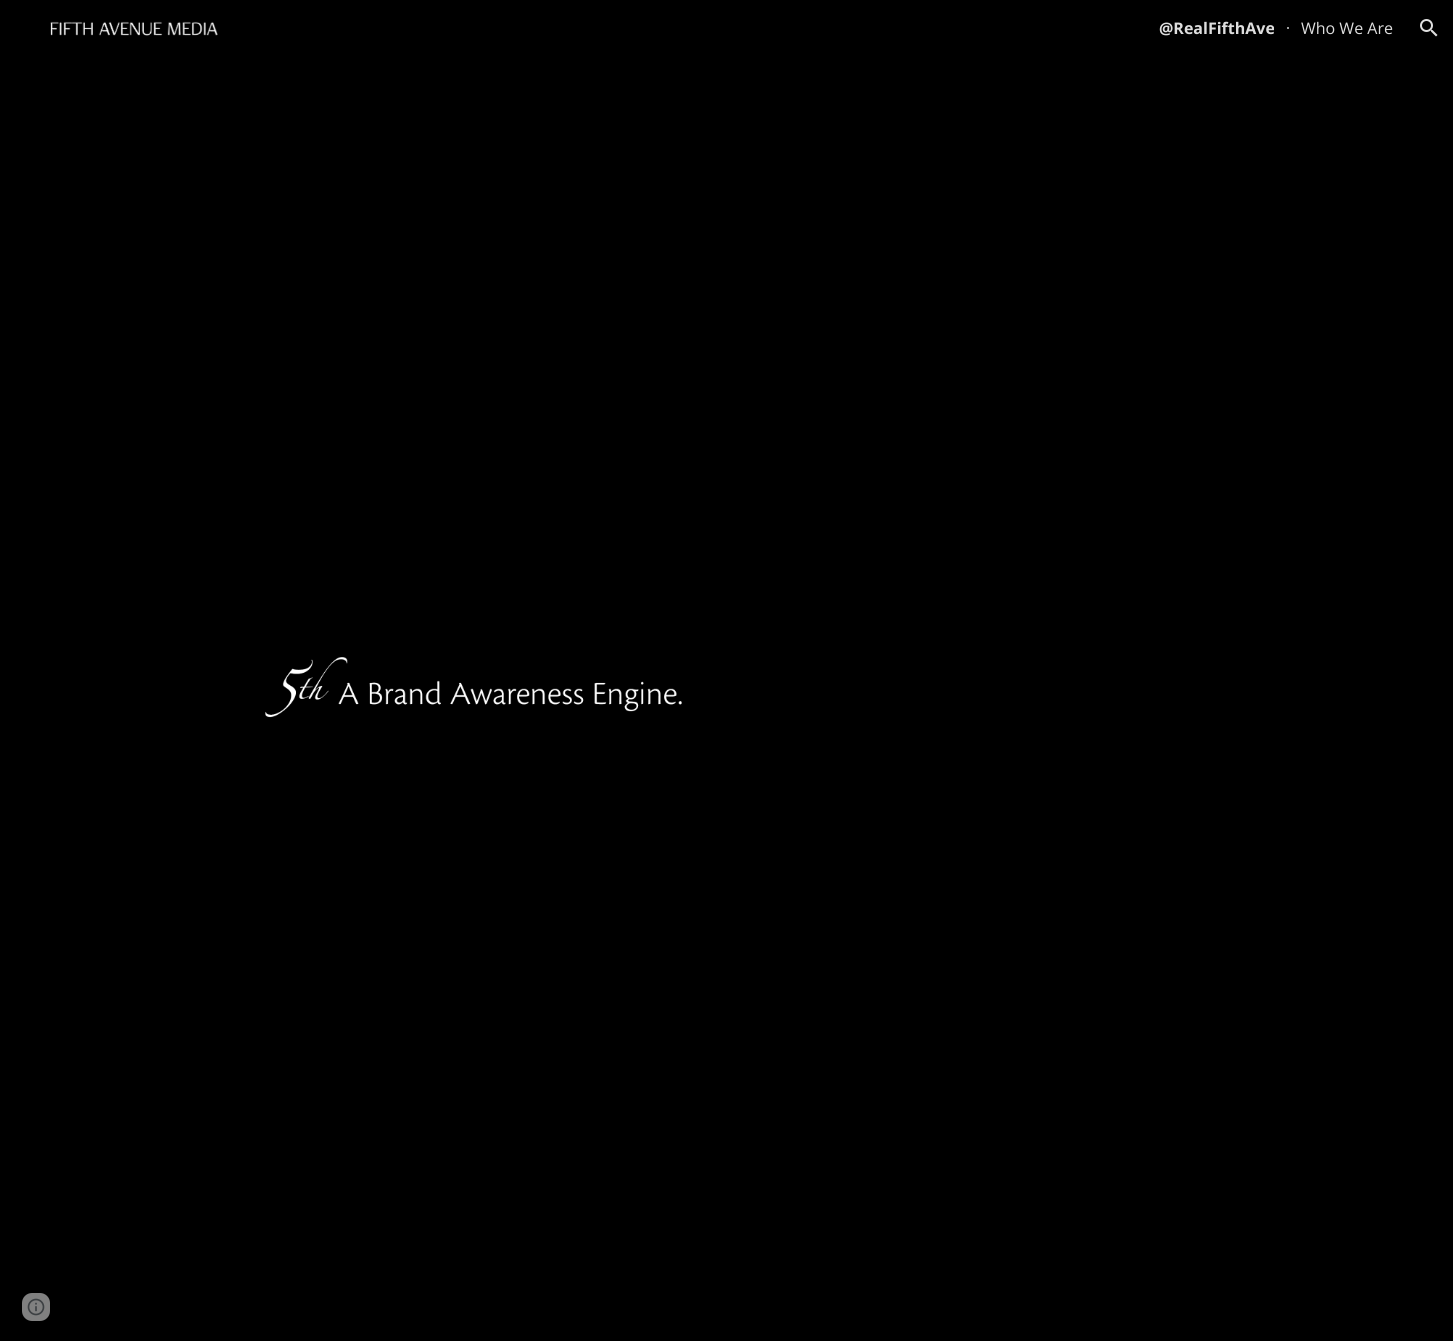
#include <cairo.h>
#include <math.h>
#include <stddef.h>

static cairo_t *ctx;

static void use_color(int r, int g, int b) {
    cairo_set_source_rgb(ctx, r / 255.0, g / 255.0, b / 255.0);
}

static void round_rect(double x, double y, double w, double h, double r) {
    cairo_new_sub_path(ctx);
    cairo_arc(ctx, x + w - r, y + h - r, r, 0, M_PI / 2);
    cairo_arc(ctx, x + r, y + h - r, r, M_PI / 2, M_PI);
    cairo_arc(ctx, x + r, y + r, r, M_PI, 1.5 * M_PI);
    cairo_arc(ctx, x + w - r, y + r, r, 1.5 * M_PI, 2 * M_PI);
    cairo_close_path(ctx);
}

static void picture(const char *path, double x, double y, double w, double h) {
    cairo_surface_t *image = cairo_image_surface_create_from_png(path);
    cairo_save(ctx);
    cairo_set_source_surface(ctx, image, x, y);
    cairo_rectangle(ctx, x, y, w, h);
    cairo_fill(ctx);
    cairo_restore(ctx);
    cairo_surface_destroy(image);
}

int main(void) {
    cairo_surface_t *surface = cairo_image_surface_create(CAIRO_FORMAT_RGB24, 1453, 1341);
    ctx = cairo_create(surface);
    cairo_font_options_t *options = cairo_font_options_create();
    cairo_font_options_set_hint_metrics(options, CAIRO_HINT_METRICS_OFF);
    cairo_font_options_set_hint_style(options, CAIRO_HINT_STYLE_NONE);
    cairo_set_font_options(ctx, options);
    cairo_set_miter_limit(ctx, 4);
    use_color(0, 0, 0);
    cairo_paint(ctx);
    picture("img1.png", 50, 21, 168, 15);
    cairo_select_font_face(ctx, "Open Sans", CAIRO_FONT_SLANT_NORMAL, CAIRO_FONT_WEIGHT_BOLD);
    cairo_set_font_size(ctx, 16);
    use_color(222, 222, 222);
    cairo_move_to(ctx, 1159, 34);
    cairo_show_text(ctx, "@RealFifthAve");
    use_color(158, 158, 158);
    cairo_rectangle(ctx, 1287, 27, 2, 2);
    cairo_fill(ctx);
    cairo_select_font_face(ctx, "Open Sans", CAIRO_FONT_SLANT_NORMAL, CAIRO_FONT_WEIGHT_NORMAL);
    use_color(222, 222, 222);
    cairo_move_to(ctx, 1301, 34);
    cairo_show_text(ctx, "Who We Are");
    picture("img2.png", 1420, 19, 18, 18);
    picture("img3.png", 265, 657, 417, 61);
    use_color(128, 128, 128);
    round_rect(22, 1293, 28, 28, 10);
    cairo_fill(ctx);
    picture("img4.png", 27, 1298, 18, 18);
    cairo_surface_write_to_png(surface, "result.png");
    cairo_font_options_destroy(options);
    cairo_destroy(ctx);
    cairo_surface_destroy(surface);
    return 0;
}
